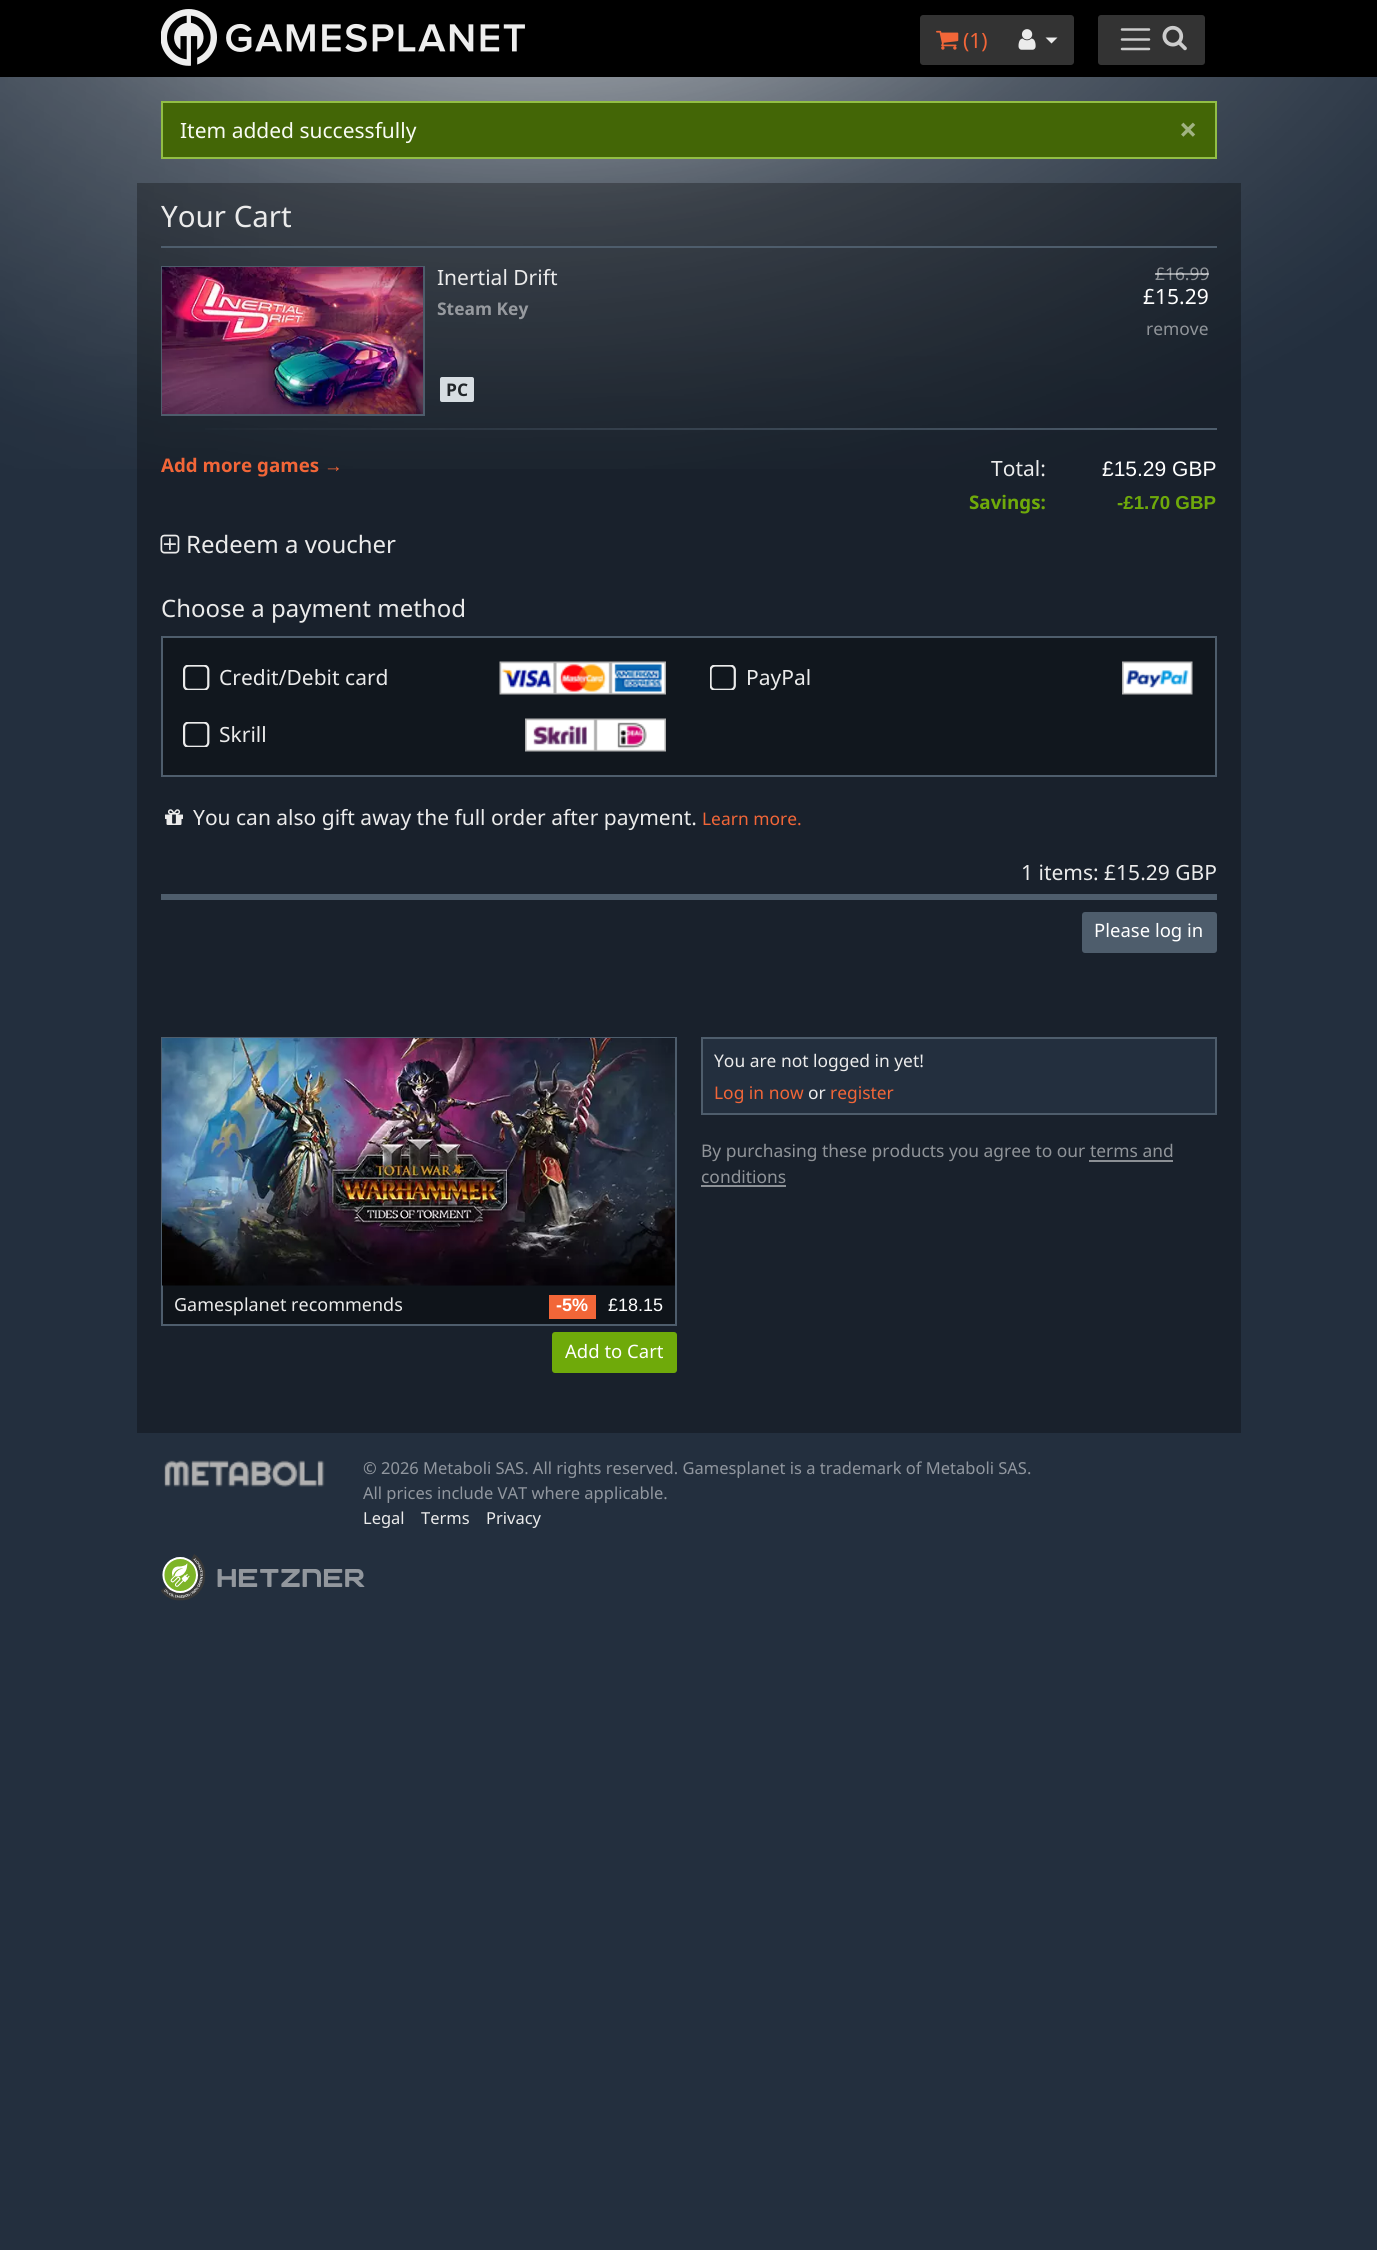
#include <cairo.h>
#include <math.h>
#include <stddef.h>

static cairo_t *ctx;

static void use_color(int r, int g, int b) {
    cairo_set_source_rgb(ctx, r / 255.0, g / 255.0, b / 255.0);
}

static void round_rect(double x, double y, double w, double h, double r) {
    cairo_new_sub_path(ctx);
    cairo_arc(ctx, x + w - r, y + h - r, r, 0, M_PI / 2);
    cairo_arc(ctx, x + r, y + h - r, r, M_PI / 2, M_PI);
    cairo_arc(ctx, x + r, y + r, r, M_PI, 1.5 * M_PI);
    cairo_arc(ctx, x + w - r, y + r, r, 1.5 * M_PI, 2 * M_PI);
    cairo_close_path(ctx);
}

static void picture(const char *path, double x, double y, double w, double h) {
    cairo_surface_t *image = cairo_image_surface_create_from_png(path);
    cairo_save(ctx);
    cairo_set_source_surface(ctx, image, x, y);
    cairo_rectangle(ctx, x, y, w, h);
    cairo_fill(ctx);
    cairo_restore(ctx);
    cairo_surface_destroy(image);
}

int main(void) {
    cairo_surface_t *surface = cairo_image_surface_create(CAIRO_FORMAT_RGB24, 1377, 2250);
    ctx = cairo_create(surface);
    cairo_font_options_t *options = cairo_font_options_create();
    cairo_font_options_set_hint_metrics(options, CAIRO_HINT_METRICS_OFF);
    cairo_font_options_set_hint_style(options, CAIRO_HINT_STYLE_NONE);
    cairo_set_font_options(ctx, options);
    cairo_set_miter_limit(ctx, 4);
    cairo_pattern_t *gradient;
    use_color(35, 47, 62);
    cairo_paint(ctx);
    picture("img1.png", 0, 77, 1377, 392);
    use_color(0, 0, 0);
    cairo_rectangle(ctx, 0, 0, 1377, 77);
    cairo_fill(ctx);
    picture("img2.png", 161, 9, 364, 57);
    use_color(51, 51, 51);
    cairo_new_path(ctx);
    cairo_move_to(ctx, 923, 15);
    cairo_line_to(ctx, 1004, 15);
    cairo_line_to(ctx, 1004, 65);
    cairo_line_to(ctx, 923, 65);
    cairo_curve_to(ctx, 921.5, 65, 920, 63.5, 920, 62);
    cairo_line_to(ctx, 920, 18);
    cairo_curve_to(ctx, 920, 16.5, 921.5, 15, 923, 15);
    cairo_close_path(ctx);
    cairo_fill(ctx);
    picture("img3.png", 936, 30, 23, 20);
    cairo_select_font_face(ctx, "Noto Sans", CAIRO_FONT_SLANT_NORMAL, CAIRO_FONT_WEIGHT_NORMAL);
    cairo_set_font_size(ctx, 21);
    use_color(242, 102, 56);
    cairo_move_to(ctx, 963, 48);
    cairo_show_text(ctx, "(1)");
    use_color(51, 51, 51);
    cairo_new_path(ctx);
    cairo_move_to(ctx, 1002, 15);
    cairo_line_to(ctx, 1071, 15);
    cairo_curve_to(ctx, 1072.5, 15, 1074, 16.5, 1074, 18);
    cairo_line_to(ctx, 1074, 62);
    cairo_curve_to(ctx, 1074, 63.5, 1072.5, 65, 1071, 65);
    cairo_line_to(ctx, 1002, 65);
    cairo_close_path(ctx);
    cairo_fill(ctx);
    picture("img4.png", 1018, 29, 18, 21);
    use_color(235, 235, 235);
    cairo_new_path(ctx);
    cairo_move_to(ctx, 1045.5, 37.5);
    cairo_line_to(ctx, 1057.5, 37.5);
    cairo_line_to(ctx, 1051.5, 43.5);
    cairo_close_path(ctx);
    cairo_fill(ctx);
    use_color(51, 51, 51);
    round_rect(1098, 15, 107, 50, 3);
    cairo_fill(ctx);
    cairo_new_path(ctx);
    cairo_move_to(ctx, 1122, 29.5);
    cairo_line_to(ctx, 1149, 29.5);
    cairo_move_to(ctx, 1122, 39.5);
    cairo_line_to(ctx, 1149, 39.5);
    cairo_move_to(ctx, 1122, 49);
    cairo_line_to(ctx, 1149, 49);
    use_color(204, 204, 204);
    cairo_set_line_width(ctx, 2.5);
    cairo_set_line_cap(ctx, CAIRO_LINE_CAP_ROUND);
    cairo_stroke(ctx);
    picture("img5.png", 1162, 25, 25, 26);
    use_color(67, 102, 6);
    cairo_rectangle(ctx, 162, 102, 1054, 56);
    cairo_fill_preserve(ctx);
    use_color(146, 190, 69);
    cairo_set_line_width(ctx, 2);
    cairo_set_line_cap(ctx, CAIRO_LINE_CAP_BUTT);
    cairo_stroke(ctx);
    use_color(249, 252, 245);
    cairo_move_to(ctx, 180, 138);
    cairo_show_text(ctx, "Item added successfully");
    cairo_select_font_face(ctx, "Noto Sans", CAIRO_FONT_SLANT_NORMAL, CAIRO_FONT_WEIGHT_BOLD);
    cairo_set_font_size(ctx, 32);
    use_color(161, 179, 131);
    cairo_move_to(ctx, 1179, 141);
    cairo_show_text(ctx, "×");
    cairo_set_source_rgba(ctx, 0, 0, 0, 0.3);
    cairo_rectangle(ctx, 137, 183, 1104, 1250);
    cairo_fill(ctx);
    cairo_select_font_face(ctx, "Noto Sans", CAIRO_FONT_SLANT_NORMAL, CAIRO_FONT_WEIGHT_NORMAL);
    cairo_set_font_size(ctx, 29.5);
    use_color(235, 235, 235);
    cairo_move_to(ctx, 161, 227);
    cairo_show_text(ctx, "Your Cart");
    use_color(78, 93, 108);
    cairo_rectangle(ctx, 161, 246, 1056, 2);
    cairo_fill(ctx);
    cairo_rectangle(ctx, 162, 267, 262, 148);
    cairo_stroke(ctx);
    picture("img6.png", 162, 267, 261, 147);
    cairo_set_font_size(ctx, 21);
    use_color(235, 235, 235);
    cairo_move_to(ctx, 437, 285);
    cairo_show_text(ctx, "Inertial Drift");
    cairo_set_font_size(ctx, 17.4);
    use_color(144, 148, 153);
    cairo_move_to(ctx, 1155, 280);
    cairo_show_text(ctx, "£16.99");
    cairo_set_source_rgba(ctx, 1, 1, 1, 0.5);
    cairo_rectangle(ctx, 1155, 273, 54, 2);
    cairo_fill(ctx);
    cairo_set_font_size(ctx, 21);
    use_color(255, 255, 255);
    cairo_move_to(ctx, 1143, 304);
    cairo_show_text(ctx, "£15.29");
    cairo_set_font_size(ctx, 17.4);
    use_color(144, 148, 153);
    cairo_move_to(ctx, 1146, 335);
    cairo_show_text(ctx, "remove");
    cairo_select_font_face(ctx, "Noto Sans", CAIRO_FONT_SLANT_NORMAL, CAIRO_FONT_WEIGHT_BOLD);
    use_color(151, 154, 159);
    cairo_move_to(ctx, 437, 315);
    cairo_show_text(ctx, "Steam Key");
    use_color(215, 221, 226);
    round_rect(440, 377, 34, 25, 2);
    cairo_fill(ctx);
    use_color(33, 37, 41);
    cairo_move_to(ctx, 446, 396);
    cairo_show_text(ctx, "PC");
    gradient = cairo_pattern_create_linear(1217, 428, 161, 428);
    cairo_pattern_add_color_stop_rgba(gradient, 0, 0.306, 0.365, 0.424, 1);
    cairo_pattern_add_color_stop_rgba(gradient, 1, 0.306, 0.365, 0.424, 0);
    cairo_set_source(ctx, gradient);
    cairo_pattern_destroy(gradient);
    cairo_rectangle(ctx, 205, 428, 1012, 2);
    cairo_fill(ctx);
    cairo_set_font_size(ctx, 18.75);
    use_color(242, 102, 56);
    cairo_move_to(ctx, 161, 472);
    cairo_show_text(ctx, "Add more games");
    cairo_select_font_face(ctx, "Liberation Sans", CAIRO_FONT_SLANT_NORMAL, CAIRO_FONT_WEIGHT_BOLD);
    cairo_move_to(ctx, 324, 472);
    cairo_show_text(ctx, "→");
    cairo_select_font_face(ctx, "Noto Sans", CAIRO_FONT_SLANT_NORMAL, CAIRO_FONT_WEIGHT_NORMAL);
    cairo_set_font_size(ctx, 21);
    use_color(235, 235, 235);
    cairo_move_to(ctx, 991, 476);
    cairo_show_text(ctx, "Total:");
    cairo_select_font_face(ctx, "Liberation Sans", CAIRO_FONT_SLANT_NORMAL, CAIRO_FONT_WEIGHT_NORMAL);
    use_color(255, 255, 255);
    cairo_move_to(ctx, 1102, 476);
    cairo_show_text(ctx, "£15.29 GBP");
    cairo_select_font_face(ctx, "Noto Sans", CAIRO_FONT_SLANT_NORMAL, CAIRO_FONT_WEIGHT_BOLD);
    cairo_set_font_size(ctx, 18.75);
    use_color(111, 170, 10);
    cairo_move_to(ctx, 969, 509);
    cairo_show_text(ctx, "Savings:");
    cairo_select_font_face(ctx, "Liberation Sans", CAIRO_FONT_SLANT_NORMAL, CAIRO_FONT_WEIGHT_BOLD);
    cairo_move_to(ctx, 1117, 509);
    cairo_show_text(ctx, "-£1.70 GBP");
    picture("img7.png", 160, 534, 20, 20);
    cairo_select_font_face(ctx, "Noto Sans", CAIRO_FONT_SLANT_NORMAL, CAIRO_FONT_WEIGHT_NORMAL);
    cairo_set_font_size(ctx, 24);
    use_color(235, 235, 235);
    cairo_move_to(ctx, 186, 553);
    cairo_show_text(ctx, "Redeem a voucher");
    cairo_move_to(ctx, 161, 617);
    cairo_show_text(ctx, "Choose a payment method");
    use_color(17, 23, 30);
    cairo_rectangle(ctx, 162, 637, 1054, 139);
    cairo_fill_preserve(ctx);
    use_color(78, 93, 108);
    cairo_stroke(ctx);
    picture("img8.png", 183, 665, 27, 25);
    cairo_set_font_size(ctx, 21);
    use_color(235, 235, 235);
    cairo_move_to(ctx, 219, 685);
    cairo_show_text(ctx, "Credit/Debit card");
    picture("img9.png", 499, 661, 167, 34);
    picture("img10.png", 710, 665, 26, 25);
    cairo_move_to(ctx, 746, 685);
    cairo_show_text(ctx, "PayPal");
    picture("img11.png", 1122, 661, 71, 34);
    picture("img8.png", 183, 722, 27, 25);
    cairo_move_to(ctx, 219, 742);
    cairo_show_text(ctx, "Skrill");
    picture("img12.png", 525, 718, 141, 34);
    picture("img13.png", 165, 809, 18, 16);
    cairo_move_to(ctx, 193, 825);
    cairo_show_text(ctx, "You can also gift away the full order after payment.");
    cairo_set_font_size(ctx, 17.4);
    use_color(242, 102, 56);
    cairo_move_to(ctx, 702, 825);
    cairo_show_text(ctx, "Learn more.");
    cairo_set_font_size(ctx, 21);
    use_color(235, 235, 235);
    cairo_move_to(ctx, 1021, 880);
    cairo_show_text(ctx, "1 items: £15.29 GBP");
    use_color(78, 93, 108);
    cairo_rectangle(ctx, 161, 894, 1056, 6);
    cairo_fill(ctx);
    round_rect(1083, 913, 133, 39, 2);
    cairo_fill_preserve(ctx);
    cairo_stroke(ctx);
    cairo_set_font_size(ctx, 18.5);
    use_color(255, 255, 255);
    cairo_move_to(ctx, 1094, 937);
    cairo_show_text(ctx, "Please log in");
    use_color(35, 47, 62);
    cairo_rectangle(ctx, 702, 1038, 514, 76);
    cairo_fill_preserve(ctx);
    use_color(78, 93, 108);
    cairo_stroke(ctx);
    cairo_set_font_size(ctx, 17.4);
    use_color(235, 235, 235);
    cairo_move_to(ctx, 714, 1067);
    cairo_show_text(ctx, "You are not logged in yet!");
    use_color(242, 102, 56);
    cairo_move_to(ctx, 714, 1099);
    cairo_show_text(ctx, "Log in now");
    use_color(235, 235, 235);
    cairo_move_to(ctx, 808, 1099);
    cairo_show_text(ctx, "or");
    use_color(242, 102, 56);
    cairo_move_to(ctx, 830, 1099);
    cairo_show_text(ctx, "register");
    use_color(144, 148, 153);
    cairo_move_to(ctx, 701, 1157);
    cairo_show_text(ctx, "By purchasing these products you agree to our");
    cairo_move_to(ctx, 1090, 1157);
    cairo_show_text(ctx, "terms and");
    use_color(140, 144, 149);
    cairo_rectangle(ctx, 1089, 1160, 84, 2);
    cairo_fill(ctx);
    use_color(144, 148, 153);
    cairo_move_to(ctx, 701, 1183);
    cairo_show_text(ctx, "conditions");
    use_color(140, 144, 149);
    cairo_rectangle(ctx, 701, 1185, 85, 2);
    cairo_fill(ctx);
    use_color(15, 20, 26);
    cairo_rectangle(ctx, 163, 1285, 512, 39);
    cairo_fill(ctx);
    cairo_rectangle(ctx, 162, 1038, 514, 287);
    use_color(78, 93, 108);
    cairo_stroke(ctx);
    picture("img14.png", 162, 1038, 513, 248);
    cairo_set_font_size(ctx, 18);
    use_color(235, 235, 235);
    cairo_move_to(ctx, 174, 1311);
    cairo_show_text(ctx, "Gamesplanet recommends");
    use_color(242, 102, 56);
    cairo_rectangle(ctx, 549, 1295, 47, 24);
    cairo_fill(ctx);
    cairo_select_font_face(ctx, "Liberation Sans", CAIRO_FONT_SLANT_NORMAL, CAIRO_FONT_WEIGHT_BOLD);
    use_color(255, 255, 255);
    cairo_move_to(ctx, 556, 1311);
    cairo_show_text(ctx, "-5%");
    cairo_select_font_face(ctx, "Liberation Sans", CAIRO_FONT_SLANT_NORMAL, CAIRO_FONT_WEIGHT_NORMAL);
    cairo_move_to(ctx, 608, 1311);
    cairo_show_text(ctx, "£18.15");
    use_color(111, 170, 10);
    round_rect(553, 1333, 123, 39, 2);
    cairo_fill_preserve(ctx);
    cairo_stroke(ctx);
    cairo_select_font_face(ctx, "Noto Sans", CAIRO_FONT_SLANT_NORMAL, CAIRO_FONT_WEIGHT_NORMAL);
    cairo_set_font_size(ctx, 18.5);
    use_color(255, 255, 255);
    cairo_move_to(ctx, 565, 1358);
    cairo_show_text(ctx, "Add to Cart");
    picture("img15.png", 164, 1460, 161, 27);
    cairo_set_font_size(ctx, 16.5);
    use_color(145, 151, 159);
    cairo_move_to(ctx, 363, 1474);
    cairo_show_text(ctx, "© 2026 Metaboli SAS. All rights reserved. Gamesplanet is a trademark of Metaboli SAS.");
    cairo_move_to(ctx, 363, 1499);
    cairo_show_text(ctx, "All prices include VAT where applicable.");
    use_color(235, 235, 235);
    cairo_move_to(ctx, 363, 1524);
    cairo_show_text(ctx, "Legal");
    cairo_move_to(ctx, 421, 1524);
    cairo_show_text(ctx, "Terms");
    cairo_move_to(ctx, 486, 1524);
    cairo_show_text(ctx, "Privacy");
    picture("img16.png", 161, 1554, 45, 47);
    picture("img17.png", 217, 1569, 148, 18);
    cairo_surface_write_to_png(surface, "result.png");
    cairo_font_options_destroy(options);
    cairo_destroy(ctx);
    cairo_surface_destroy(surface);
    return 0;
}
